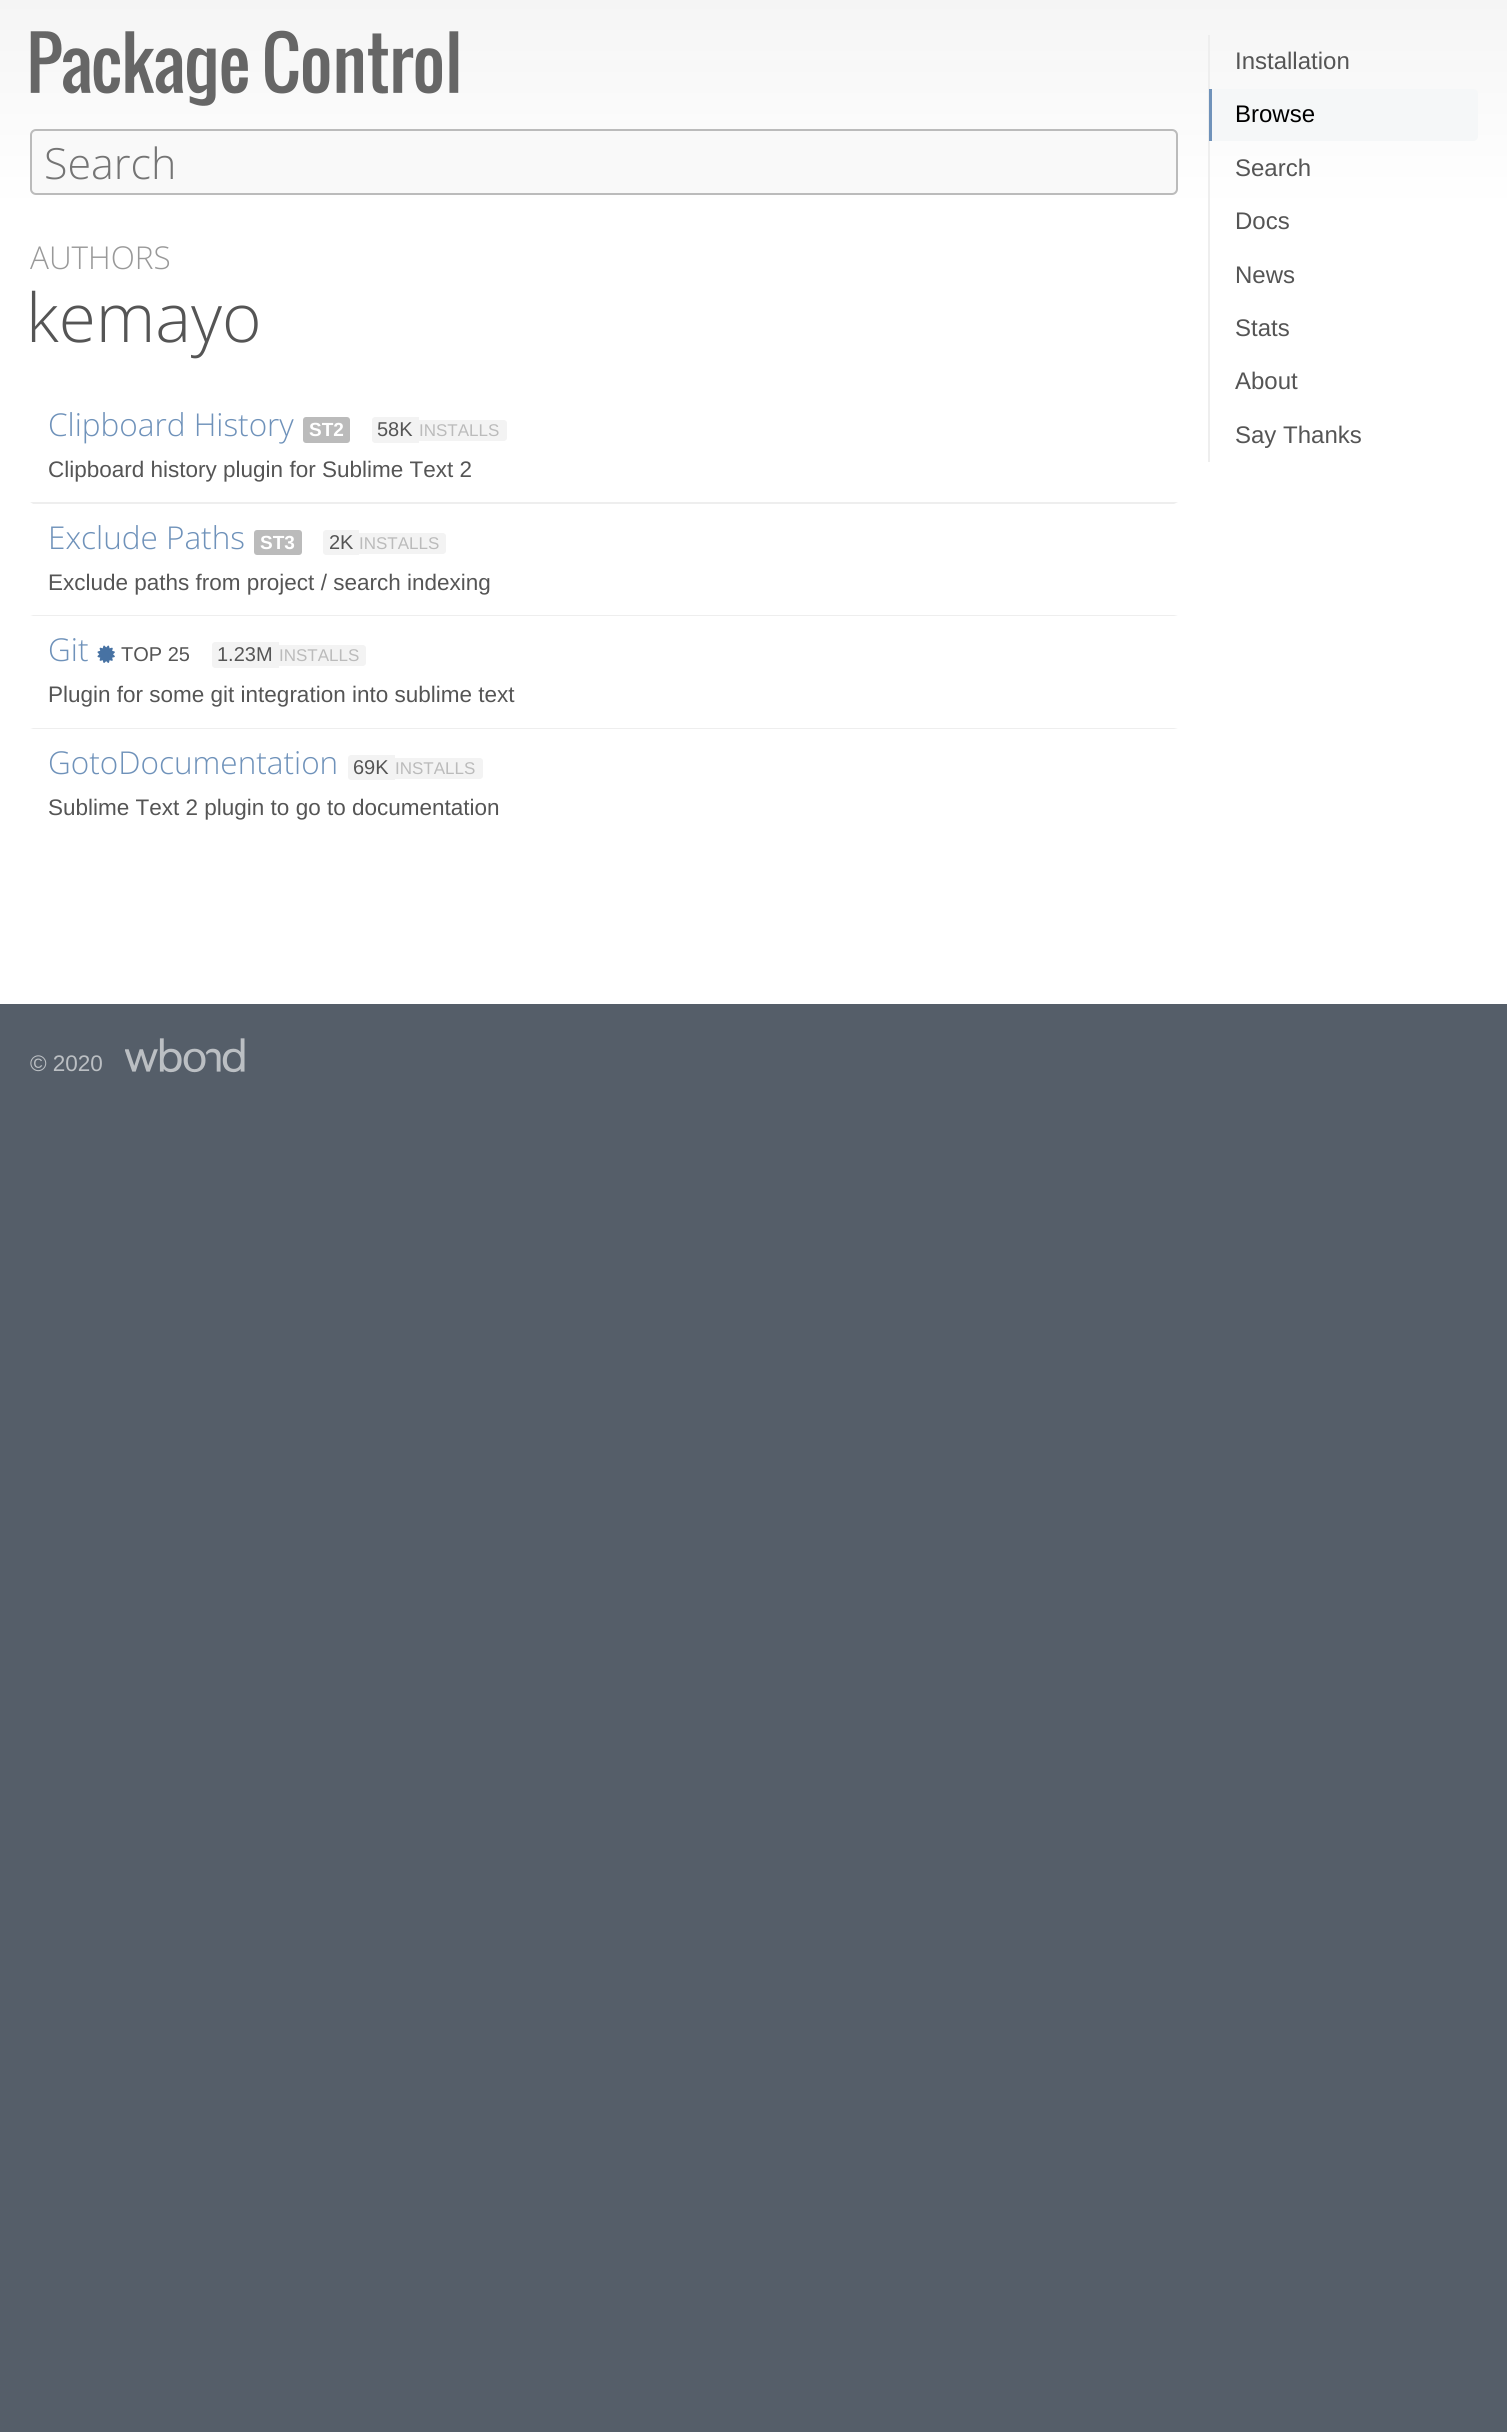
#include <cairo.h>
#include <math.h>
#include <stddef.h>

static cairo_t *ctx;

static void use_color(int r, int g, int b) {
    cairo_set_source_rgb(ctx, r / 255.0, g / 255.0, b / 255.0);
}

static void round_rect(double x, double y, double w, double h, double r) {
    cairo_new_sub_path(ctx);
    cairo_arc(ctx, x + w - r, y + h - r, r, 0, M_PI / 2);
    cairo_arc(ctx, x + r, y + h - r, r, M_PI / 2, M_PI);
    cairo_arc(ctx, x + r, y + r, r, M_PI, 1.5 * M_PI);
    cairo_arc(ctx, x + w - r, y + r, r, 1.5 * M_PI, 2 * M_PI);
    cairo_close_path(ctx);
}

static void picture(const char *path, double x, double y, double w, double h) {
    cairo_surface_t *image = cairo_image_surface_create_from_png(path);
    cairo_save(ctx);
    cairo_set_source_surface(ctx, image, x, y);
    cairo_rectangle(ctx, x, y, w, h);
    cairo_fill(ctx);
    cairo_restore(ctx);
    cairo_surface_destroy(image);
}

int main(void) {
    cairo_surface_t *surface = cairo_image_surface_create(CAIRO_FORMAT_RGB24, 1507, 2432);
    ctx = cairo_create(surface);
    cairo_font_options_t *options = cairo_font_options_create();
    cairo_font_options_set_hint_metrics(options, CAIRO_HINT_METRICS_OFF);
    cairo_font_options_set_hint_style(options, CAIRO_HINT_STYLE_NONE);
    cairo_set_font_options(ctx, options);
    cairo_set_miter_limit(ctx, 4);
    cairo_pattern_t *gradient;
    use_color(85, 94, 105);
    cairo_paint(ctx);
    use_color(255, 255, 255);
    cairo_rectangle(ctx, 0, 209, 1507, 795);
    cairo_fill(ctx);
    gradient = cairo_pattern_create_linear(754, 0, 754, 209);
    cairo_pattern_add_color_stop_rgba(gradient, 0, 0.961, 0.961, 0.961, 1);
    cairo_pattern_add_color_stop_rgba(gradient, 1, 1, 1, 1, 1);
    cairo_set_source(ctx, gradient);
    cairo_pattern_destroy(gradient);
    cairo_rectangle(ctx, 0, 0, 1507, 209);
    cairo_fill(ctx);
    picture("img1.png", 30, 30, 429, 76);
    use_color(238, 238, 238);
    cairo_rectangle(ctx, 1208, 35, 2, 427);
    cairo_fill(ctx);
    cairo_select_font_face(ctx, "Liberation Sans", CAIRO_FONT_SLANT_NORMAL, CAIRO_FONT_WEIGHT_NORMAL);
    cairo_set_font_size(ctx, 24);
    use_color(85, 85, 85);
    cairo_move_to(ctx, 1235, 69);
    cairo_show_text(ctx, "Installation");
    use_color(245, 247, 248);
    cairo_new_path(ctx);
    cairo_move_to(ctx, 1209, 89);
    cairo_line_to(ctx, 1473, 89);
    cairo_curve_to(ctx, 1476, 89, 1478, 91, 1478, 94);
    cairo_line_to(ctx, 1478, 136);
    cairo_curve_to(ctx, 1478, 139, 1476, 141, 1473, 141);
    cairo_line_to(ctx, 1209, 141);
    cairo_close_path(ctx);
    cairo_fill(ctx);
    use_color(111, 146, 186);
    cairo_rectangle(ctx, 1209, 89, 3, 52);
    cairo_fill(ctx);
    use_color(0, 0, 0);
    cairo_move_to(ctx, 1235, 122);
    cairo_show_text(ctx, "Browse");
    use_color(85, 85, 85);
    cairo_move_to(ctx, 1235, 176);
    cairo_show_text(ctx, "Search");
    cairo_move_to(ctx, 1235, 229);
    cairo_show_text(ctx, "Docs");
    cairo_move_to(ctx, 1235, 283);
    cairo_show_text(ctx, "News");
    cairo_move_to(ctx, 1235, 336);
    cairo_show_text(ctx, "Stats");
    cairo_move_to(ctx, 1235, 389);
    cairo_show_text(ctx, "About");
    cairo_move_to(ctx, 1235, 443);
    cairo_show_text(ctx, "Say Thanks");
    use_color(249, 249, 249);
    round_rect(31, 130, 1146, 64, 5);
    cairo_fill_preserve(ctx);
    use_color(187, 187, 187);
    cairo_stroke(ctx);
    cairo_select_font_face(ctx, "Open Sans Light", CAIRO_FONT_SLANT_NORMAL, CAIRO_FONT_WEIGHT_NORMAL);
    cairo_set_font_size(ctx, 43);
    use_color(117, 117, 117);
    cairo_move_to(ctx, 44, 179);
    cairo_show_text(ctx, "Search");
    cairo_set_font_size(ctx, 31.5);
    use_color(153, 153, 153);
    cairo_move_to(ctx, 30, 269);
    cairo_show_text(ctx, "AUTHORS");
    cairo_set_font_size(ctx, 67.5);
    use_color(85, 85, 85);
    cairo_move_to(ctx, 26, 342);
    cairo_show_text(ctx, "kemayo");
    cairo_set_font_size(ctx, 31.5);
    use_color(111, 146, 186);
    cairo_move_to(ctx, 48, 436);
    cairo_show_text(ctx, "Clipboard History");
    use_color(187, 187, 187);
    round_rect(303, 417, 47, 26, 3);
    cairo_fill(ctx);
    cairo_select_font_face(ctx, "Liberation Sans", CAIRO_FONT_SLANT_NORMAL, CAIRO_FONT_WEIGHT_BOLD);
    cairo_set_font_size(ctx, 19);
    use_color(255, 255, 255);
    cairo_move_to(ctx, 309, 436);
    cairo_show_text(ctx, "ST2");
    use_color(243, 243, 243);
    cairo_new_path(ctx);
    cairo_move_to(ctx, 375, 417);
    cairo_line_to(ctx, 419, 417);
    cairo_line_to(ctx, 419, 443);
    cairo_line_to(ctx, 375, 443);
    cairo_curve_to(ctx, 373.5, 443, 372, 441.5, 372, 440);
    cairo_line_to(ctx, 372, 420);
    cairo_curve_to(ctx, 372, 418.5, 373.5, 417, 375, 417);
    cairo_close_path(ctx);
    cairo_fill(ctx);
    cairo_select_font_face(ctx, "Liberation Sans", CAIRO_FONT_SLANT_NORMAL, CAIRO_FONT_WEIGHT_NORMAL);
    cairo_set_font_size(ctx, 20);
    use_color(85, 85, 85);
    cairo_move_to(ctx, 377, 436);
    cairo_show_text(ctx, "58K");
    use_color(243, 243, 243);
    cairo_new_path(ctx);
    cairo_move_to(ctx, 419, 420);
    cairo_line_to(ctx, 504, 420);
    cairo_curve_to(ctx, 505.5, 420, 507, 421.5, 507, 423);
    cairo_line_to(ctx, 507, 438);
    cairo_curve_to(ctx, 507, 439.5, 505.5, 441, 504, 441);
    cairo_line_to(ctx, 419, 441);
    cairo_close_path(ctx);
    cairo_fill(ctx);
    cairo_set_font_size(ctx, 17);
    use_color(187, 187, 187);
    cairo_move_to(ctx, 419, 436);
    cairo_show_text(ctx, "INSTALLS");
    cairo_set_font_size(ctx, 22.5);
    use_color(85, 85, 85);
    cairo_move_to(ctx, 48, 477);
    cairo_show_text(ctx, "Clipboard history plugin for Sublime Text 2");
    use_color(238, 238, 238);
    cairo_new_path(ctx);
    cairo_move_to(ctx, 30, 502);
    cairo_line_to(ctx, 1178, 502);
    cairo_line_to(ctx, 1174, 504);
    cairo_line_to(ctx, 33, 504);
    cairo_close_path(ctx);
    cairo_fill(ctx);
    cairo_select_font_face(ctx, "Open Sans Light", CAIRO_FONT_SLANT_NORMAL, CAIRO_FONT_WEIGHT_NORMAL);
    cairo_set_font_size(ctx, 31.5);
    use_color(111, 146, 186);
    cairo_move_to(ctx, 48, 549);
    cairo_show_text(ctx, "Exclude Paths");
    use_color(187, 187, 187);
    round_rect(254, 530, 48, 25, 3);
    cairo_fill(ctx);
    cairo_select_font_face(ctx, "Liberation Sans", CAIRO_FONT_SLANT_NORMAL, CAIRO_FONT_WEIGHT_BOLD);
    cairo_set_font_size(ctx, 19);
    use_color(255, 255, 255);
    cairo_move_to(ctx, 260, 549);
    cairo_show_text(ctx, "ST3");
    use_color(243, 243, 243);
    cairo_new_path(ctx);
    cairo_move_to(ctx, 326, 530);
    cairo_line_to(ctx, 359, 530);
    cairo_line_to(ctx, 359, 555);
    cairo_line_to(ctx, 326, 555);
    cairo_curve_to(ctx, 324.5, 555, 323, 553.5, 323, 552);
    cairo_line_to(ctx, 323, 533);
    cairo_curve_to(ctx, 323, 531.5, 324.5, 530, 326, 530);
    cairo_close_path(ctx);
    cairo_fill(ctx);
    cairo_select_font_face(ctx, "Liberation Sans", CAIRO_FONT_SLANT_NORMAL, CAIRO_FONT_WEIGHT_NORMAL);
    cairo_set_font_size(ctx, 20);
    use_color(85, 85, 85);
    cairo_move_to(ctx, 329, 549);
    cairo_show_text(ctx, "2K");
    use_color(243, 243, 243);
    cairo_new_path(ctx);
    cairo_move_to(ctx, 359, 533);
    cairo_line_to(ctx, 443, 533);
    cairo_curve_to(ctx, 444.5, 533, 446, 534.5, 446, 536);
    cairo_line_to(ctx, 446, 551);
    cairo_curve_to(ctx, 446, 552.5, 444.5, 554, 443, 554);
    cairo_line_to(ctx, 359, 554);
    cairo_close_path(ctx);
    cairo_fill(ctx);
    cairo_set_font_size(ctx, 17);
    use_color(187, 187, 187);
    cairo_move_to(ctx, 359, 549);
    cairo_show_text(ctx, "INSTALLS");
    cairo_set_font_size(ctx, 22.5);
    use_color(85, 85, 85);
    cairo_move_to(ctx, 48, 590);
    cairo_show_text(ctx, "Exclude paths from project / search indexing");
    use_color(238, 238, 238);
    cairo_new_path(ctx);
    cairo_move_to(ctx, 30, 615);
    cairo_line_to(ctx, 1178, 615);
    cairo_line_to(ctx, 1174, 616);
    cairo_line_to(ctx, 33, 616);
    cairo_close_path(ctx);
    cairo_fill(ctx);
    cairo_select_font_face(ctx, "Open Sans Light", CAIRO_FONT_SLANT_NORMAL, CAIRO_FONT_WEIGHT_NORMAL);
    cairo_set_font_size(ctx, 31.5);
    use_color(111, 146, 186);
    cairo_move_to(ctx, 48, 661);
    cairo_show_text(ctx, "Git");
    picture("img2.png", 97, 645, 18, 18);
    cairo_select_font_face(ctx, "Liberation Sans", CAIRO_FONT_SLANT_NORMAL, CAIRO_FONT_WEIGHT_NORMAL);
    cairo_set_font_size(ctx, 20);
    use_color(85, 85, 85);
    cairo_move_to(ctx, 121, 661);
    cairo_show_text(ctx, "TOP 25");
    use_color(243, 243, 243);
    cairo_new_path(ctx);
    cairo_move_to(ctx, 215, 642);
    cairo_line_to(ctx, 279, 642);
    cairo_line_to(ctx, 279, 668);
    cairo_line_to(ctx, 215, 668);
    cairo_curve_to(ctx, 213.5, 668, 212, 666.5, 212, 665);
    cairo_line_to(ctx, 212, 645);
    cairo_curve_to(ctx, 212, 643.5, 213.5, 642, 215, 642);
    cairo_close_path(ctx);
    cairo_fill(ctx);
    use_color(85, 85, 85);
    cairo_move_to(ctx, 217, 661);
    cairo_show_text(ctx, "1.23M");
    use_color(243, 243, 243);
    cairo_new_path(ctx);
    cairo_move_to(ctx, 279, 645);
    cairo_line_to(ctx, 363, 645);
    cairo_curve_to(ctx, 364.5, 645, 366, 646.5, 366, 648);
    cairo_line_to(ctx, 366, 663);
    cairo_curve_to(ctx, 366, 664.5, 364.5, 666, 363, 666);
    cairo_line_to(ctx, 279, 666);
    cairo_close_path(ctx);
    cairo_fill(ctx);
    cairo_set_font_size(ctx, 17);
    use_color(187, 187, 187);
    cairo_move_to(ctx, 279, 661);
    cairo_show_text(ctx, "INSTALLS");
    cairo_set_font_size(ctx, 22.5);
    use_color(85, 85, 85);
    cairo_move_to(ctx, 48, 702);
    cairo_show_text(ctx, "Plugin for some git integration into sublime text");
    use_color(238, 238, 238);
    cairo_new_path(ctx);
    cairo_move_to(ctx, 30, 728);
    cairo_line_to(ctx, 1178, 728);
    cairo_line_to(ctx, 1174, 729);
    cairo_line_to(ctx, 33, 729);
    cairo_close_path(ctx);
    cairo_fill(ctx);
    cairo_select_font_face(ctx, "Open Sans Light", CAIRO_FONT_SLANT_NORMAL, CAIRO_FONT_WEIGHT_NORMAL);
    cairo_set_font_size(ctx, 31.5);
    use_color(111, 146, 186);
    cairo_move_to(ctx, 48, 774);
    cairo_show_text(ctx, "GotoDocumentation");
    use_color(243, 243, 243);
    cairo_new_path(ctx);
    cairo_move_to(ctx, 351, 755);
    cairo_line_to(ctx, 395, 755);
    cairo_line_to(ctx, 395, 780);
    cairo_line_to(ctx, 351, 780);
    cairo_curve_to(ctx, 349.5, 780, 348, 778.5, 348, 777);
    cairo_line_to(ctx, 348, 758);
    cairo_curve_to(ctx, 348, 756.5, 349.5, 755, 351, 755);
    cairo_close_path(ctx);
    cairo_fill(ctx);
    cairo_select_font_face(ctx, "Liberation Sans", CAIRO_FONT_SLANT_NORMAL, CAIRO_FONT_WEIGHT_NORMAL);
    cairo_set_font_size(ctx, 20);
    use_color(85, 85, 85);
    cairo_move_to(ctx, 353, 774);
    cairo_show_text(ctx, "69K");
    use_color(243, 243, 243);
    cairo_new_path(ctx);
    cairo_move_to(ctx, 395, 758);
    cairo_line_to(ctx, 480, 758);
    cairo_curve_to(ctx, 481.5, 758, 483, 759.5, 483, 761);
    cairo_line_to(ctx, 483, 776);
    cairo_curve_to(ctx, 483, 777.5, 481.5, 779, 480, 779);
    cairo_line_to(ctx, 395, 779);
    cairo_close_path(ctx);
    cairo_fill(ctx);
    cairo_set_font_size(ctx, 17);
    use_color(187, 187, 187);
    cairo_move_to(ctx, 395, 774);
    cairo_show_text(ctx, "INSTALLS");
    cairo_set_font_size(ctx, 22.5);
    use_color(85, 85, 85);
    cairo_move_to(ctx, 48, 815);
    cairo_show_text(ctx, "Sublime Text 2 plugin to go to documentation");
    use_color(187, 191, 195);
    cairo_move_to(ctx, 30, 1071);
    cairo_show_text(ctx, "© 2020");
    picture("img3.png", 125, 1038, 120, 35);
    cairo_surface_write_to_png(surface, "result.png");
    cairo_font_options_destroy(options);
    cairo_destroy(ctx);
    cairo_surface_destroy(surface);
    return 0;
}
